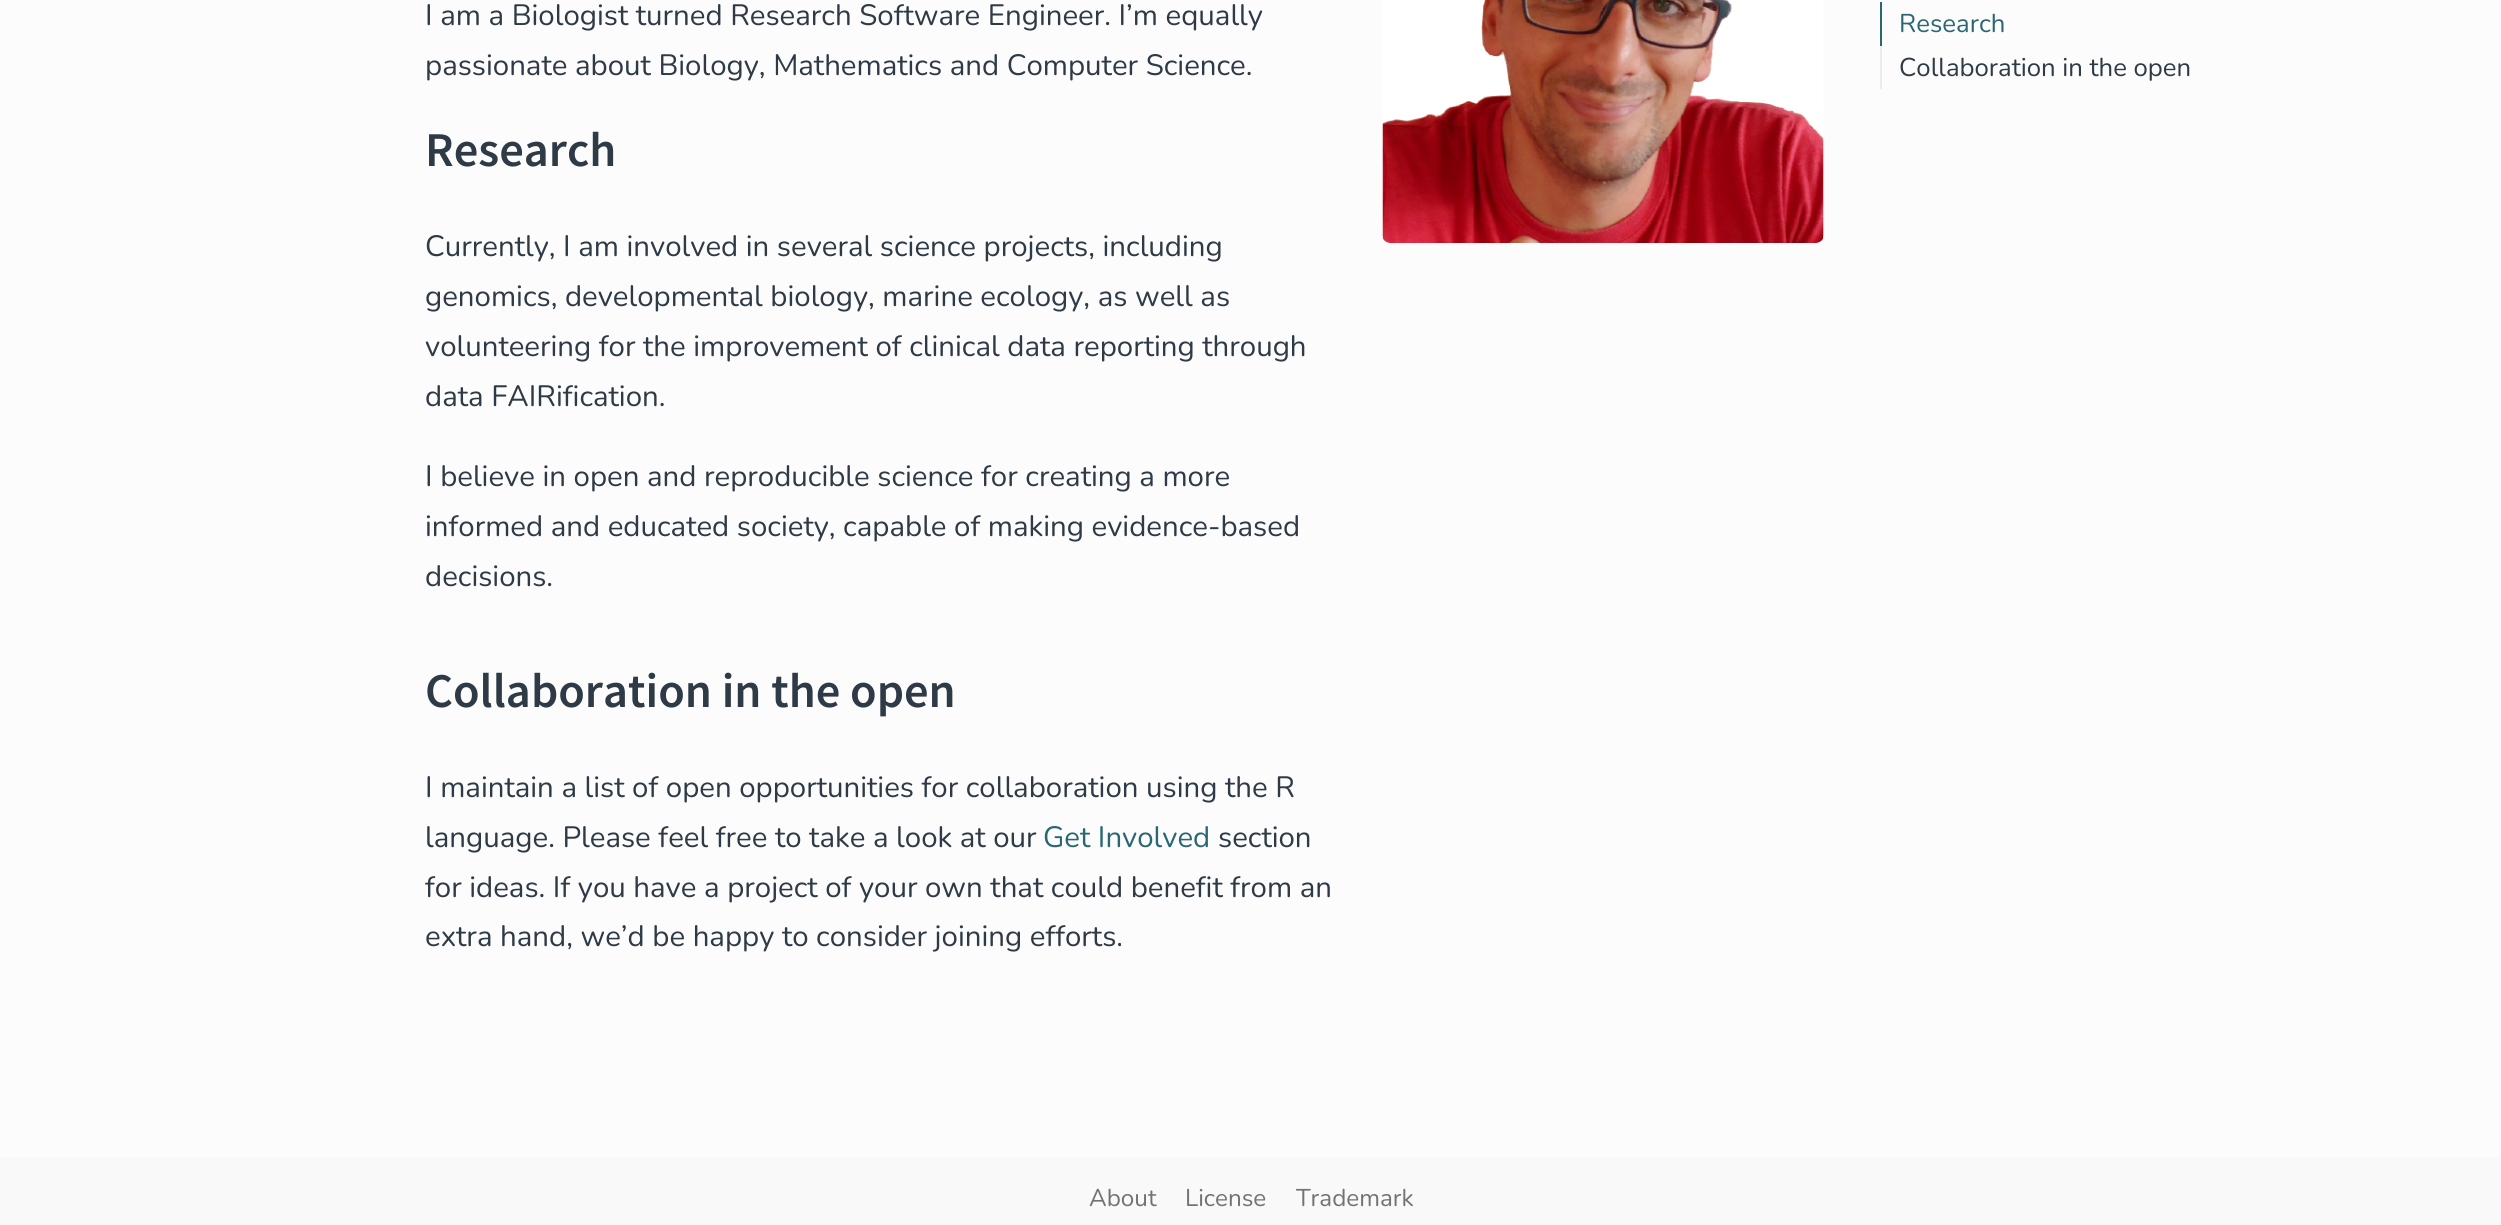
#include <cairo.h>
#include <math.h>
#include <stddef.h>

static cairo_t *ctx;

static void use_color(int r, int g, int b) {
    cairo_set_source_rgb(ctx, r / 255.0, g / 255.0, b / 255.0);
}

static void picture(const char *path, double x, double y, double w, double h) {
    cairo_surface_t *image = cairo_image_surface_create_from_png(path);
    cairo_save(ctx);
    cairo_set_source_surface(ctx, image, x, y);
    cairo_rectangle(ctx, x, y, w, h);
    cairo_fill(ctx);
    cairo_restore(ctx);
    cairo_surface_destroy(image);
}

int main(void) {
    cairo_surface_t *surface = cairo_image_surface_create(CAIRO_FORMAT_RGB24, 2501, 1225);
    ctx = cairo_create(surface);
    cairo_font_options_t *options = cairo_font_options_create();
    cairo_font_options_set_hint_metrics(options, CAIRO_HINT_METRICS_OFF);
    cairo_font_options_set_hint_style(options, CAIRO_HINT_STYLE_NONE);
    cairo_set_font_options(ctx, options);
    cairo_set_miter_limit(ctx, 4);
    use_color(252, 252, 252);
    cairo_paint(ctx);
    cairo_select_font_face(ctx, "Nunito", CAIRO_FONT_SLANT_NORMAL, CAIRO_FONT_WEIGHT_NORMAL);
    cairo_set_font_size(ctx, 29.4);
    use_color(46, 58, 69);
    cairo_move_to(ctx, 425, 25);
    cairo_show_text(ctx, "I am a Biologist turned Research Software Engineer. I’m equally");
    cairo_move_to(ctx, 425, 75);
    cairo_show_text(ctx, "passionate about Biology, Mathematics and Computer Science.");
    cairo_select_font_face(ctx, "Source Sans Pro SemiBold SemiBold", CAIRO_FONT_SLANT_NORMAL, CAIRO_FONT_WEIGHT_NORMAL);
    cairo_set_font_size(ctx, 48.5);
    cairo_move_to(ctx, 425, 166);
    cairo_show_text(ctx, "Research");
    cairo_select_font_face(ctx, "Nunito", CAIRO_FONT_SLANT_NORMAL, CAIRO_FONT_WEIGHT_NORMAL);
    cairo_set_font_size(ctx, 29.4);
    cairo_move_to(ctx, 425, 256);
    cairo_show_text(ctx, "Currently, I am involved in several science projects, including");
    cairo_move_to(ctx, 425, 306);
    cairo_show_text(ctx, "genomics, developmental biology, marine ecology, as well as");
    cairo_move_to(ctx, 425, 356);
    cairo_show_text(ctx, "volunteering for the improvement of clinical data reporting through");
    cairo_move_to(ctx, 425, 406);
    cairo_show_text(ctx, "data FAIRification.");
    cairo_move_to(ctx, 425, 486);
    cairo_show_text(ctx, "I believe in open and reproducible science for creating a more");
    cairo_move_to(ctx, 425, 536);
    cairo_show_text(ctx, "informed and educated society, capable of making evidence-based");
    cairo_move_to(ctx, 425, 586);
    cairo_show_text(ctx, "decisions.");
    cairo_select_font_face(ctx, "Source Sans Pro SemiBold SemiBold", CAIRO_FONT_SLANT_NORMAL, CAIRO_FONT_WEIGHT_NORMAL);
    cairo_set_font_size(ctx, 48.5);
    cairo_move_to(ctx, 425, 707);
    cairo_show_text(ctx, "Collaboration in the open");
    cairo_select_font_face(ctx, "Nunito", CAIRO_FONT_SLANT_NORMAL, CAIRO_FONT_WEIGHT_NORMAL);
    cairo_set_font_size(ctx, 29.4);
    cairo_move_to(ctx, 425, 797);
    cairo_show_text(ctx, "I maintain a list of open opportunities for collaboration using the R");
    cairo_move_to(ctx, 425, 847);
    cairo_show_text(ctx, "language. Please feel free to take a look at our");
    use_color(42, 103, 115);
    cairo_move_to(ctx, 1043, 847);
    cairo_show_text(ctx, "Get Involved");
    use_color(46, 58, 69);
    cairo_move_to(ctx, 1218, 847);
    cairo_show_text(ctx, "section");
    cairo_move_to(ctx, 425, 897);
    cairo_show_text(ctx, "for ideas. If you have a project of your own that could benefit from an");
    cairo_move_to(ctx, 425, 946);
    cairo_show_text(ctx, "extra hand, we’d be happy to consider joining efforts.");
    picture("img1.png", 1382, 0, 442, 243);
    use_color(42, 103, 115);
    cairo_rectangle(ctx, 1880, 2, 2, 44);
    cairo_fill(ctx);
    cairo_set_font_size(ctx, 25.75);
    cairo_move_to(ctx, 1899, 32);
    cairo_show_text(ctx, "Research");
    use_color(233, 236, 239);
    cairo_rectangle(ctx, 1880, 46, 2, 43);
    cairo_fill(ctx);
    use_color(46, 58, 69);
    cairo_move_to(ctx, 1899, 76);
    cairo_show_text(ctx, "Collaboration in the open");
    use_color(249, 249, 249);
    cairo_rectangle(ctx, 0, 1157, 2501, 68);
    cairo_fill(ctx);
    cairo_set_font_size(ctx, 24.25);
    use_color(115, 115, 115);
    cairo_move_to(ctx, 1089, 1206);
    cairo_show_text(ctx, "About");
    cairo_move_to(ctx, 1185, 1206);
    cairo_show_text(ctx, "License");
    cairo_move_to(ctx, 1296, 1206);
    cairo_show_text(ctx, "Trademark");
    cairo_surface_write_to_png(surface, "result.png");
    cairo_font_options_destroy(options);
    cairo_destroy(ctx);
    cairo_surface_destroy(surface);
    return 0;
}
